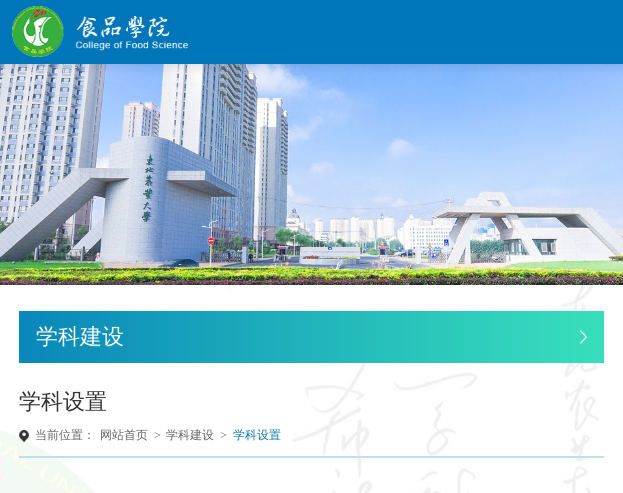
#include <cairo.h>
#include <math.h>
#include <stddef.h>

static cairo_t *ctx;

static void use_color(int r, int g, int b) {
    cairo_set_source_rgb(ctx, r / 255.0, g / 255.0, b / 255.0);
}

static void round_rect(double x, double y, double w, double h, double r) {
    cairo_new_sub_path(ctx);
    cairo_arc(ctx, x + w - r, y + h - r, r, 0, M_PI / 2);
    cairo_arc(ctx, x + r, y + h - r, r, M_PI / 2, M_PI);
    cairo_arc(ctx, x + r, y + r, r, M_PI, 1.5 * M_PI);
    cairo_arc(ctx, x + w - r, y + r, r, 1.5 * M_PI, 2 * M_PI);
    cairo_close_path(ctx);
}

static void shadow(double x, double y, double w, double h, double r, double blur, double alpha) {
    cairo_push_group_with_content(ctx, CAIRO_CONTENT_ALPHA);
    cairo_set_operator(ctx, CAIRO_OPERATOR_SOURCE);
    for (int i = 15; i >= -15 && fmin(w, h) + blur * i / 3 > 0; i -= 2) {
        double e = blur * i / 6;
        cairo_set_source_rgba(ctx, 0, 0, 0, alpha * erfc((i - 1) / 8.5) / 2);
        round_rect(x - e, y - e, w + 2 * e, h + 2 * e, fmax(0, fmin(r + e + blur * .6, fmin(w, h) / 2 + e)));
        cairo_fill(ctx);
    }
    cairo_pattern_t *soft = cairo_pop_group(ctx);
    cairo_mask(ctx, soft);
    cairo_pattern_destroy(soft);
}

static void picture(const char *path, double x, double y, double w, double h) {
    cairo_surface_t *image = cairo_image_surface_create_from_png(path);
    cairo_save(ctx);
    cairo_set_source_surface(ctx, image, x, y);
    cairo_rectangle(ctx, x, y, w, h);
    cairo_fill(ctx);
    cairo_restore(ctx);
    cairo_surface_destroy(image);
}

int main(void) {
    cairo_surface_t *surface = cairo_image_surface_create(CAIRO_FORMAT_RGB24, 623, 493);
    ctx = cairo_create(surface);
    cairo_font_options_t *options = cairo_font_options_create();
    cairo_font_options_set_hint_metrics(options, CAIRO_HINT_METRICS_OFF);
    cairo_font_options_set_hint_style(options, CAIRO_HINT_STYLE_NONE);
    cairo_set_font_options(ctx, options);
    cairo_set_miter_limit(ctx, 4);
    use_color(255, 255, 255);
    cairo_paint(ctx);
    picture("img2.png", 0, 64, 623, 221);
    use_color(0, 0, 0);
    shadow(0, 0, 623, 64, 0, 6.5, 0.15);
    use_color(0, 118, 186);
    cairo_rectangle(ctx, 0, 0, 623, 64);
    cairo_fill(ctx);
    picture("img1.png", 12, 6, 176, 51);
    picture("img3.png", 0, 285, 599, 208);
    picture("img4.png", 19, 311, 585, 52);
    cairo_select_font_face(ctx, "WenQuanYi Zen Hei Medium", CAIRO_FONT_SLANT_NORMAL, CAIRO_FONT_WEIGHT_NORMAL);
    cairo_set_font_size(ctx, 22);
    use_color(255, 255, 255);
    cairo_move_to(ctx, 36, 344);
    cairo_show_text(ctx, "学科建设");
    picture("img5.png", 580, 330, 7, 14);
    use_color(190, 224, 237);
    cairo_rectangle(ctx, 19, 456, 585, 2);
    cairo_fill(ctx);
    use_color(51, 51, 51);
    cairo_move_to(ctx, 19, 409);
    cairo_show_text(ctx, "学科设置");
    picture("img6.png", 19, 430, 10, 12);
    cairo_set_font_size(ctx, 12);
    use_color(102, 102, 102);
    cairo_move_to(ctx, 35, 439);
    cairo_show_text(ctx, "当前位置：");
    cairo_move_to(ctx, 100, 439);
    cairo_show_text(ctx, "网站首页");
    cairo_select_font_face(ctx, "Liberation Serif", CAIRO_FONT_SLANT_NORMAL, CAIRO_FONT_WEIGHT_NORMAL);
    cairo_move_to(ctx, 154, 439);
    cairo_show_text(ctx, ">");
    cairo_select_font_face(ctx, "WenQuanYi Zen Hei Medium", CAIRO_FONT_SLANT_NORMAL, CAIRO_FONT_WEIGHT_NORMAL);
    cairo_move_to(ctx, 166, 439);
    cairo_show_text(ctx, "学科建设");
    cairo_select_font_face(ctx, "Liberation Serif", CAIRO_FONT_SLANT_NORMAL, CAIRO_FONT_WEIGHT_NORMAL);
    cairo_move_to(ctx, 220, 439);
    cairo_show_text(ctx, ">");
    cairo_select_font_face(ctx, "WenQuanYi Zen Hei Medium", CAIRO_FONT_SLANT_NORMAL, CAIRO_FONT_WEIGHT_NORMAL);
    use_color(14, 123, 176);
    cairo_move_to(ctx, 233, 439);
    cairo_show_text(ctx, "学科设置");
    cairo_surface_write_to_png(surface, "result.png");
    cairo_font_options_destroy(options);
    cairo_destroy(ctx);
    cairo_surface_destroy(surface);
    return 0;
}
